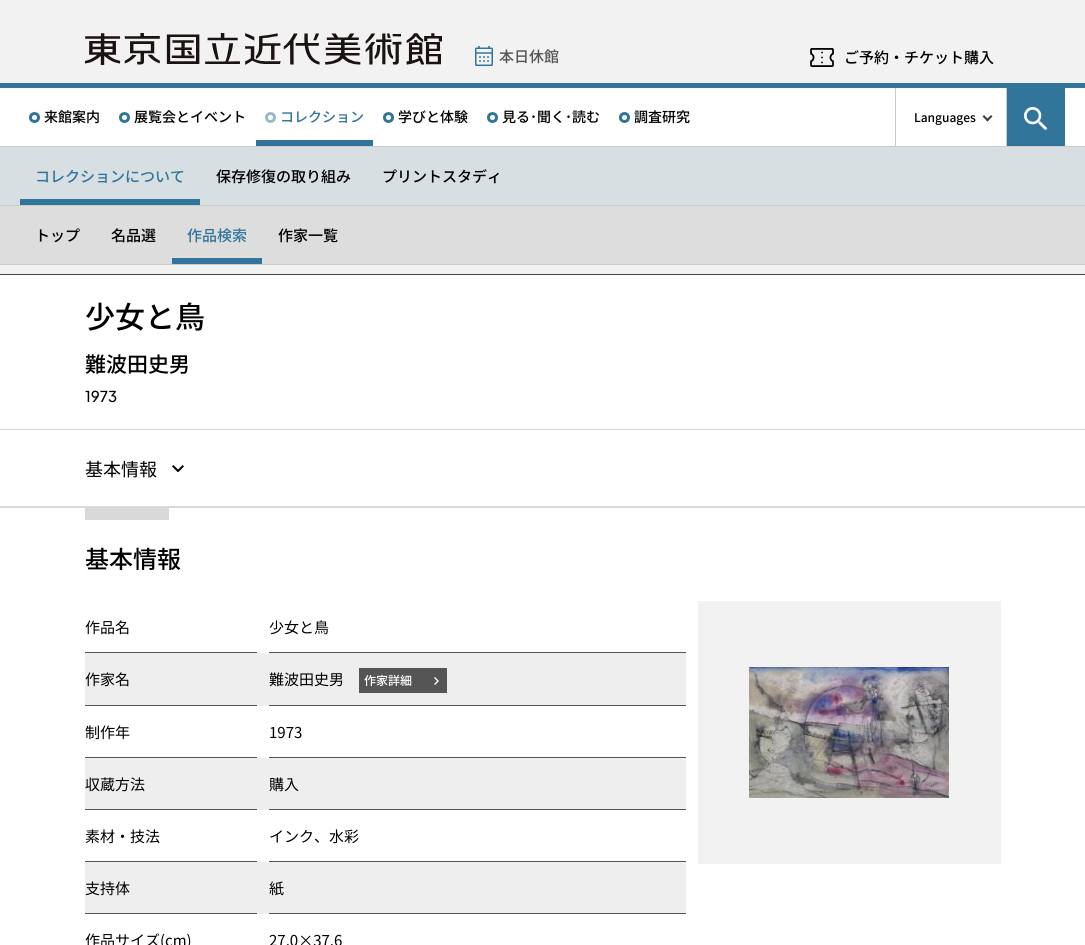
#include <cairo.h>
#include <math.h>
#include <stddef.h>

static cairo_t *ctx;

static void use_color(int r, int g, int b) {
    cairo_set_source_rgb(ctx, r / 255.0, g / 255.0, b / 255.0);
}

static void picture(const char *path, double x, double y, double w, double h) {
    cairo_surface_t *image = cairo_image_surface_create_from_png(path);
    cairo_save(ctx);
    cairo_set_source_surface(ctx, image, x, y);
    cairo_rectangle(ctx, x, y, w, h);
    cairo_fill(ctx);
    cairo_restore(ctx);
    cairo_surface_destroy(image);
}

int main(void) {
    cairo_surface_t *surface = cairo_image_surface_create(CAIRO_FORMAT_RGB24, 1085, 945);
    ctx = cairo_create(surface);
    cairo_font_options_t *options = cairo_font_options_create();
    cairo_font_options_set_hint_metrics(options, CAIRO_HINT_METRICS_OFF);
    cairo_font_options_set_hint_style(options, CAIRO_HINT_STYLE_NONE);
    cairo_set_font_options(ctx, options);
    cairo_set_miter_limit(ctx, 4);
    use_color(242, 242, 242);
    cairo_paint(ctx);
    use_color(49, 117, 154);
    cairo_rectangle(ctx, 0, 83, 1085, 5);
    cairo_fill(ctx);
    picture("img1.png", 85, 33, 357, 32);
    picture("img2.png", 475, 46, 18, 20);
    cairo_select_font_face(ctx, "Noto Sans JP Medium", CAIRO_FONT_SLANT_NORMAL, CAIRO_FONT_WEIGHT_NORMAL);
    cairo_set_font_size(ctx, 15);
    use_color(85, 85, 85);
    cairo_move_to(ctx, 499, 62);
    cairo_show_text(ctx, "本日休館");
    picture("img3.png", 810, 48, 24, 19);
    use_color(0, 0, 0);
    cairo_move_to(ctx, 844, 63);
    cairo_show_text(ctx, "ご予約・チケット購入");
    use_color(255, 255, 255);
    cairo_rectangle(ctx, 0, 88, 1085, 58);
    cairo_fill(ctx);
    use_color(204, 204, 204);
    cairo_rectangle(ctx, 0, 146, 1085, 1);
    cairo_fill(ctx);
    cairo_arc(ctx, 34.5, 117.5, 4, 0, 2 * M_PI);
    use_color(49, 117, 154);
    cairo_set_line_width(ctx, 3);
    cairo_stroke(ctx);
    cairo_set_font_size(ctx, 14);
    use_color(0, 0, 0);
    cairo_move_to(ctx, 44, 122);
    cairo_show_text(ctx, "来館案内");
    cairo_new_path(ctx);
    cairo_arc(ctx, 124.5, 117.5, 4, 0, 2 * M_PI);
    use_color(49, 117, 154);
    cairo_stroke(ctx);
    use_color(0, 0, 0);
    cairo_move_to(ctx, 134, 122);
    cairo_show_text(ctx, "展覧会とイベント");
    cairo_new_path(ctx);
    cairo_arc(ctx, 270.5, 117.5, 4, 0, 2 * M_PI);
    use_color(152, 186, 205);
    cairo_stroke(ctx);
    use_color(49, 117, 154);
    cairo_move_to(ctx, 280, 122);
    cairo_show_text(ctx, "コレクション");
    cairo_rectangle(ctx, 256, 140, 117, 6);
    cairo_fill(ctx);
    cairo_arc(ctx, 388.5, 117.5, 4, 0, 2 * M_PI);
    cairo_stroke(ctx);
    use_color(0, 0, 0);
    cairo_move_to(ctx, 398, 122);
    cairo_show_text(ctx, "学びと体験");
    cairo_new_path(ctx);
    cairo_arc(ctx, 492.5, 117.5, 4, 0, 2 * M_PI);
    use_color(49, 117, 154);
    cairo_stroke(ctx);
    use_color(0, 0, 0);
    cairo_move_to(ctx, 502, 122);
    cairo_show_text(ctx, "見る･聞く･読む");
    cairo_new_path(ctx);
    cairo_arc(ctx, 624.5, 117.5, 4, 0, 2 * M_PI);
    use_color(49, 117, 154);
    cairo_stroke(ctx);
    use_color(0, 0, 0);
    cairo_move_to(ctx, 634, 122);
    cairo_show_text(ctx, "調査研究");
    use_color(204, 204, 204);
    cairo_rectangle(ctx, 1006, 88, 1, 58);
    cairo_fill(ctx);
    cairo_rectangle(ctx, 895, 88, 1, 58);
    cairo_fill(ctx);
    cairo_set_font_size(ctx, 12);
    use_color(0, 0, 0);
    cairo_move_to(ctx, 914, 122);
    cairo_show_text(ctx, "Languages");
    use_color(65, 65, 65);
    cairo_new_path(ctx);
    cairo_move_to(ctx, 991, 115);
    cairo_line_to(ctx, 992.5, 116.5);
    cairo_line_to(ctx, 987.5, 121.5);
    cairo_line_to(ctx, 986, 120);
    cairo_close_path(ctx);
    cairo_fill(ctx);
    cairo_new_path(ctx);
    cairo_move_to(ctx, 984, 115);
    cairo_line_to(ctx, 989, 120);
    cairo_line_to(ctx, 987.5, 121.5);
    cairo_line_to(ctx, 982.5, 116.5);
    cairo_close_path(ctx);
    cairo_fill(ctx);
    use_color(49, 117, 154);
    cairo_rectangle(ctx, 1007, 88, 58, 58);
    cairo_fill(ctx);
    picture("img4.png", 1024, 107, 24, 24);
    use_color(216, 223, 227);
    cairo_rectangle(ctx, 0, 147, 1085, 58);
    cairo_fill(ctx);
    use_color(204, 204, 204);
    cairo_rectangle(ctx, 0, 205, 1085, 1);
    cairo_fill(ctx);
    cairo_set_font_size(ctx, 15);
    use_color(49, 117, 154);
    cairo_move_to(ctx, 35, 182);
    cairo_show_text(ctx, "コレクションについて");
    cairo_rectangle(ctx, 20, 199, 180, 6);
    cairo_fill(ctx);
    use_color(0, 0, 0);
    cairo_move_to(ctx, 216, 182);
    cairo_show_text(ctx, "保存修復の取り組み");
    cairo_move_to(ctx, 382, 182);
    cairo_show_text(ctx, "プリントスタディ");
    use_color(221, 221, 221);
    cairo_rectangle(ctx, 0, 206, 1085, 58);
    cairo_fill(ctx);
    use_color(204, 204, 204);
    cairo_rectangle(ctx, 0, 264, 1085, 1);
    cairo_fill(ctx);
    use_color(0, 0, 0);
    cairo_move_to(ctx, 35, 241);
    cairo_show_text(ctx, "トップ");
    cairo_move_to(ctx, 111, 241);
    cairo_show_text(ctx, "名品選");
    use_color(49, 117, 154);
    cairo_move_to(ctx, 187, 241);
    cairo_show_text(ctx, "作品検索");
    cairo_rectangle(ctx, 172, 258, 90, 6);
    cairo_fill(ctx);
    use_color(0, 0, 0);
    cairo_move_to(ctx, 278, 241);
    cairo_show_text(ctx, "作家一覧");
    use_color(255, 255, 255);
    cairo_rectangle(ctx, 0, 275, 1085, 670);
    cairo_fill(ctx);
    use_color(65, 65, 65);
    cairo_rectangle(ctx, 0, 274, 1085, 1);
    cairo_fill(ctx);
    use_color(217, 217, 217);
    cairo_rectangle(ctx, 0, 429, 1085, 1);
    cairo_fill(ctx);
    cairo_set_font_size(ctx, 30);
    use_color(0, 0, 0);
    cairo_move_to(ctx, 85, 328);
    cairo_show_text(ctx, "少女と鳥");
    cairo_set_font_size(ctx, 21);
    cairo_move_to(ctx, 85, 372);
    cairo_show_text(ctx, "難波田史男");
    cairo_select_font_face(ctx, "Plus Jakarta Sans Medium", CAIRO_FONT_SLANT_NORMAL, CAIRO_FONT_WEIGHT_NORMAL);
    cairo_set_font_size(ctx, 15);
    cairo_move_to(ctx, 85, 402);
    cairo_show_text(ctx, "1973");
    picture("img5.png", 172, 465, 12, 7);
    cairo_select_font_face(ctx, "Noto Sans JP", CAIRO_FONT_SLANT_NORMAL, CAIRO_FONT_WEIGHT_NORMAL);
    cairo_set_font_size(ctx, 18);
    cairo_move_to(ctx, 85, 476);
    cairo_show_text(ctx, "基本情報");
    use_color(217, 217, 217);
    cairo_rectangle(ctx, 0, 506, 1085, 2);
    cairo_fill(ctx);
    cairo_rectangle(ctx, 85, 508, 84, 12);
    cairo_fill(ctx);
    cairo_select_font_face(ctx, "Noto Sans JP Medium", CAIRO_FONT_SLANT_NORMAL, CAIRO_FONT_WEIGHT_NORMAL);
    cairo_set_font_size(ctx, 24);
    use_color(0, 0, 0);
    cairo_move_to(ctx, 85, 568);
    cairo_show_text(ctx, "基本情報");
    use_color(85, 85, 85);
    cairo_rectangle(ctx, 85, 652, 172, 1);
    cairo_fill(ctx);
    cairo_select_font_face(ctx, "Noto Sans JP", CAIRO_FONT_SLANT_NORMAL, CAIRO_FONT_WEIGHT_NORMAL);
    cairo_set_font_size(ctx, 15);
    use_color(0, 0, 0);
    cairo_move_to(ctx, 85, 633);
    cairo_show_text(ctx, "作品名");
    use_color(85, 85, 85);
    cairo_rectangle(ctx, 269, 652, 417, 1);
    cairo_fill(ctx);
    use_color(0, 0, 0);
    cairo_move_to(ctx, 269, 633);
    cairo_show_text(ctx, "少女と鳥");
    use_color(238, 238, 238);
    cairo_rectangle(ctx, 85, 653, 601, 53);
    cairo_fill(ctx);
    use_color(85, 85, 85);
    cairo_rectangle(ctx, 85, 705, 172, 1);
    cairo_fill(ctx);
    use_color(0, 0, 0);
    cairo_move_to(ctx, 85, 685);
    cairo_show_text(ctx, "作家名");
    use_color(85, 85, 85);
    cairo_rectangle(ctx, 269, 705, 417, 1);
    cairo_fill(ctx);
    use_color(0, 0, 0);
    cairo_move_to(ctx, 269, 685);
    cairo_show_text(ctx, "難波田史男");
    use_color(85, 85, 85);
    cairo_rectangle(ctx, 359, 668, 88, 25);
    cairo_fill(ctx);
    picture("img6.png", 434, 677, 5, 8);
    cairo_select_font_face(ctx, "Noto Sans JP Medium", CAIRO_FONT_SLANT_NORMAL, CAIRO_FONT_WEIGHT_NORMAL);
    cairo_set_font_size(ctx, 12);
    use_color(255, 255, 255);
    cairo_move_to(ctx, 364, 685);
    cairo_show_text(ctx, "作家詳細");
    use_color(85, 85, 85);
    cairo_rectangle(ctx, 85, 757, 172, 1);
    cairo_fill(ctx);
    cairo_select_font_face(ctx, "Noto Sans JP", CAIRO_FONT_SLANT_NORMAL, CAIRO_FONT_WEIGHT_NORMAL);
    cairo_set_font_size(ctx, 15);
    use_color(0, 0, 0);
    cairo_move_to(ctx, 85, 738);
    cairo_show_text(ctx, "制作年");
    use_color(85, 85, 85);
    cairo_rectangle(ctx, 269, 757, 417, 1);
    cairo_fill(ctx);
    use_color(0, 0, 0);
    cairo_move_to(ctx, 269, 738);
    cairo_show_text(ctx, "1973");
    use_color(238, 238, 238);
    cairo_rectangle(ctx, 85, 758, 601, 52);
    cairo_fill(ctx);
    use_color(85, 85, 85);
    cairo_rectangle(ctx, 85, 809, 172, 1);
    cairo_fill(ctx);
    use_color(0, 0, 0);
    cairo_move_to(ctx, 85, 790);
    cairo_show_text(ctx, "収蔵方法");
    use_color(85, 85, 85);
    cairo_rectangle(ctx, 269, 809, 417, 1);
    cairo_fill(ctx);
    use_color(0, 0, 0);
    cairo_move_to(ctx, 269, 790);
    cairo_show_text(ctx, "購入");
    use_color(85, 85, 85);
    cairo_rectangle(ctx, 85, 861, 172, 1);
    cairo_fill(ctx);
    use_color(0, 0, 0);
    cairo_move_to(ctx, 85, 842);
    cairo_show_text(ctx, "素材・技法");
    use_color(85, 85, 85);
    cairo_rectangle(ctx, 269, 861, 417, 1);
    cairo_fill(ctx);
    use_color(0, 0, 0);
    cairo_move_to(ctx, 269, 842);
    cairo_show_text(ctx, "インク、水彩");
    use_color(238, 238, 238);
    cairo_rectangle(ctx, 85, 862, 601, 52);
    cairo_fill(ctx);
    use_color(85, 85, 85);
    cairo_rectangle(ctx, 85, 913, 172, 1);
    cairo_fill(ctx);
    use_color(0, 0, 0);
    cairo_move_to(ctx, 85, 894);
    cairo_show_text(ctx, "支持体");
    use_color(85, 85, 85);
    cairo_rectangle(ctx, 269, 913, 417, 1);
    cairo_fill(ctx);
    use_color(0, 0, 0);
    cairo_move_to(ctx, 269, 894);
    cairo_show_text(ctx, "紙");
    cairo_move_to(ctx, 85, 946);
    cairo_show_text(ctx, "作品サイズ(cm)");
    cairo_move_to(ctx, 269, 946);
    cairo_show_text(ctx, "27.0×37.6");
    use_color(242, 242, 242);
    cairo_rectangle(ctx, 698, 601, 303, 263);
    cairo_fill(ctx);
    picture("img7.png", 749, 667, 200, 131);
    cairo_surface_write_to_png(surface, "result.png");
    cairo_font_options_destroy(options);
    cairo_destroy(ctx);
    cairo_surface_destroy(surface);
    return 0;
}
